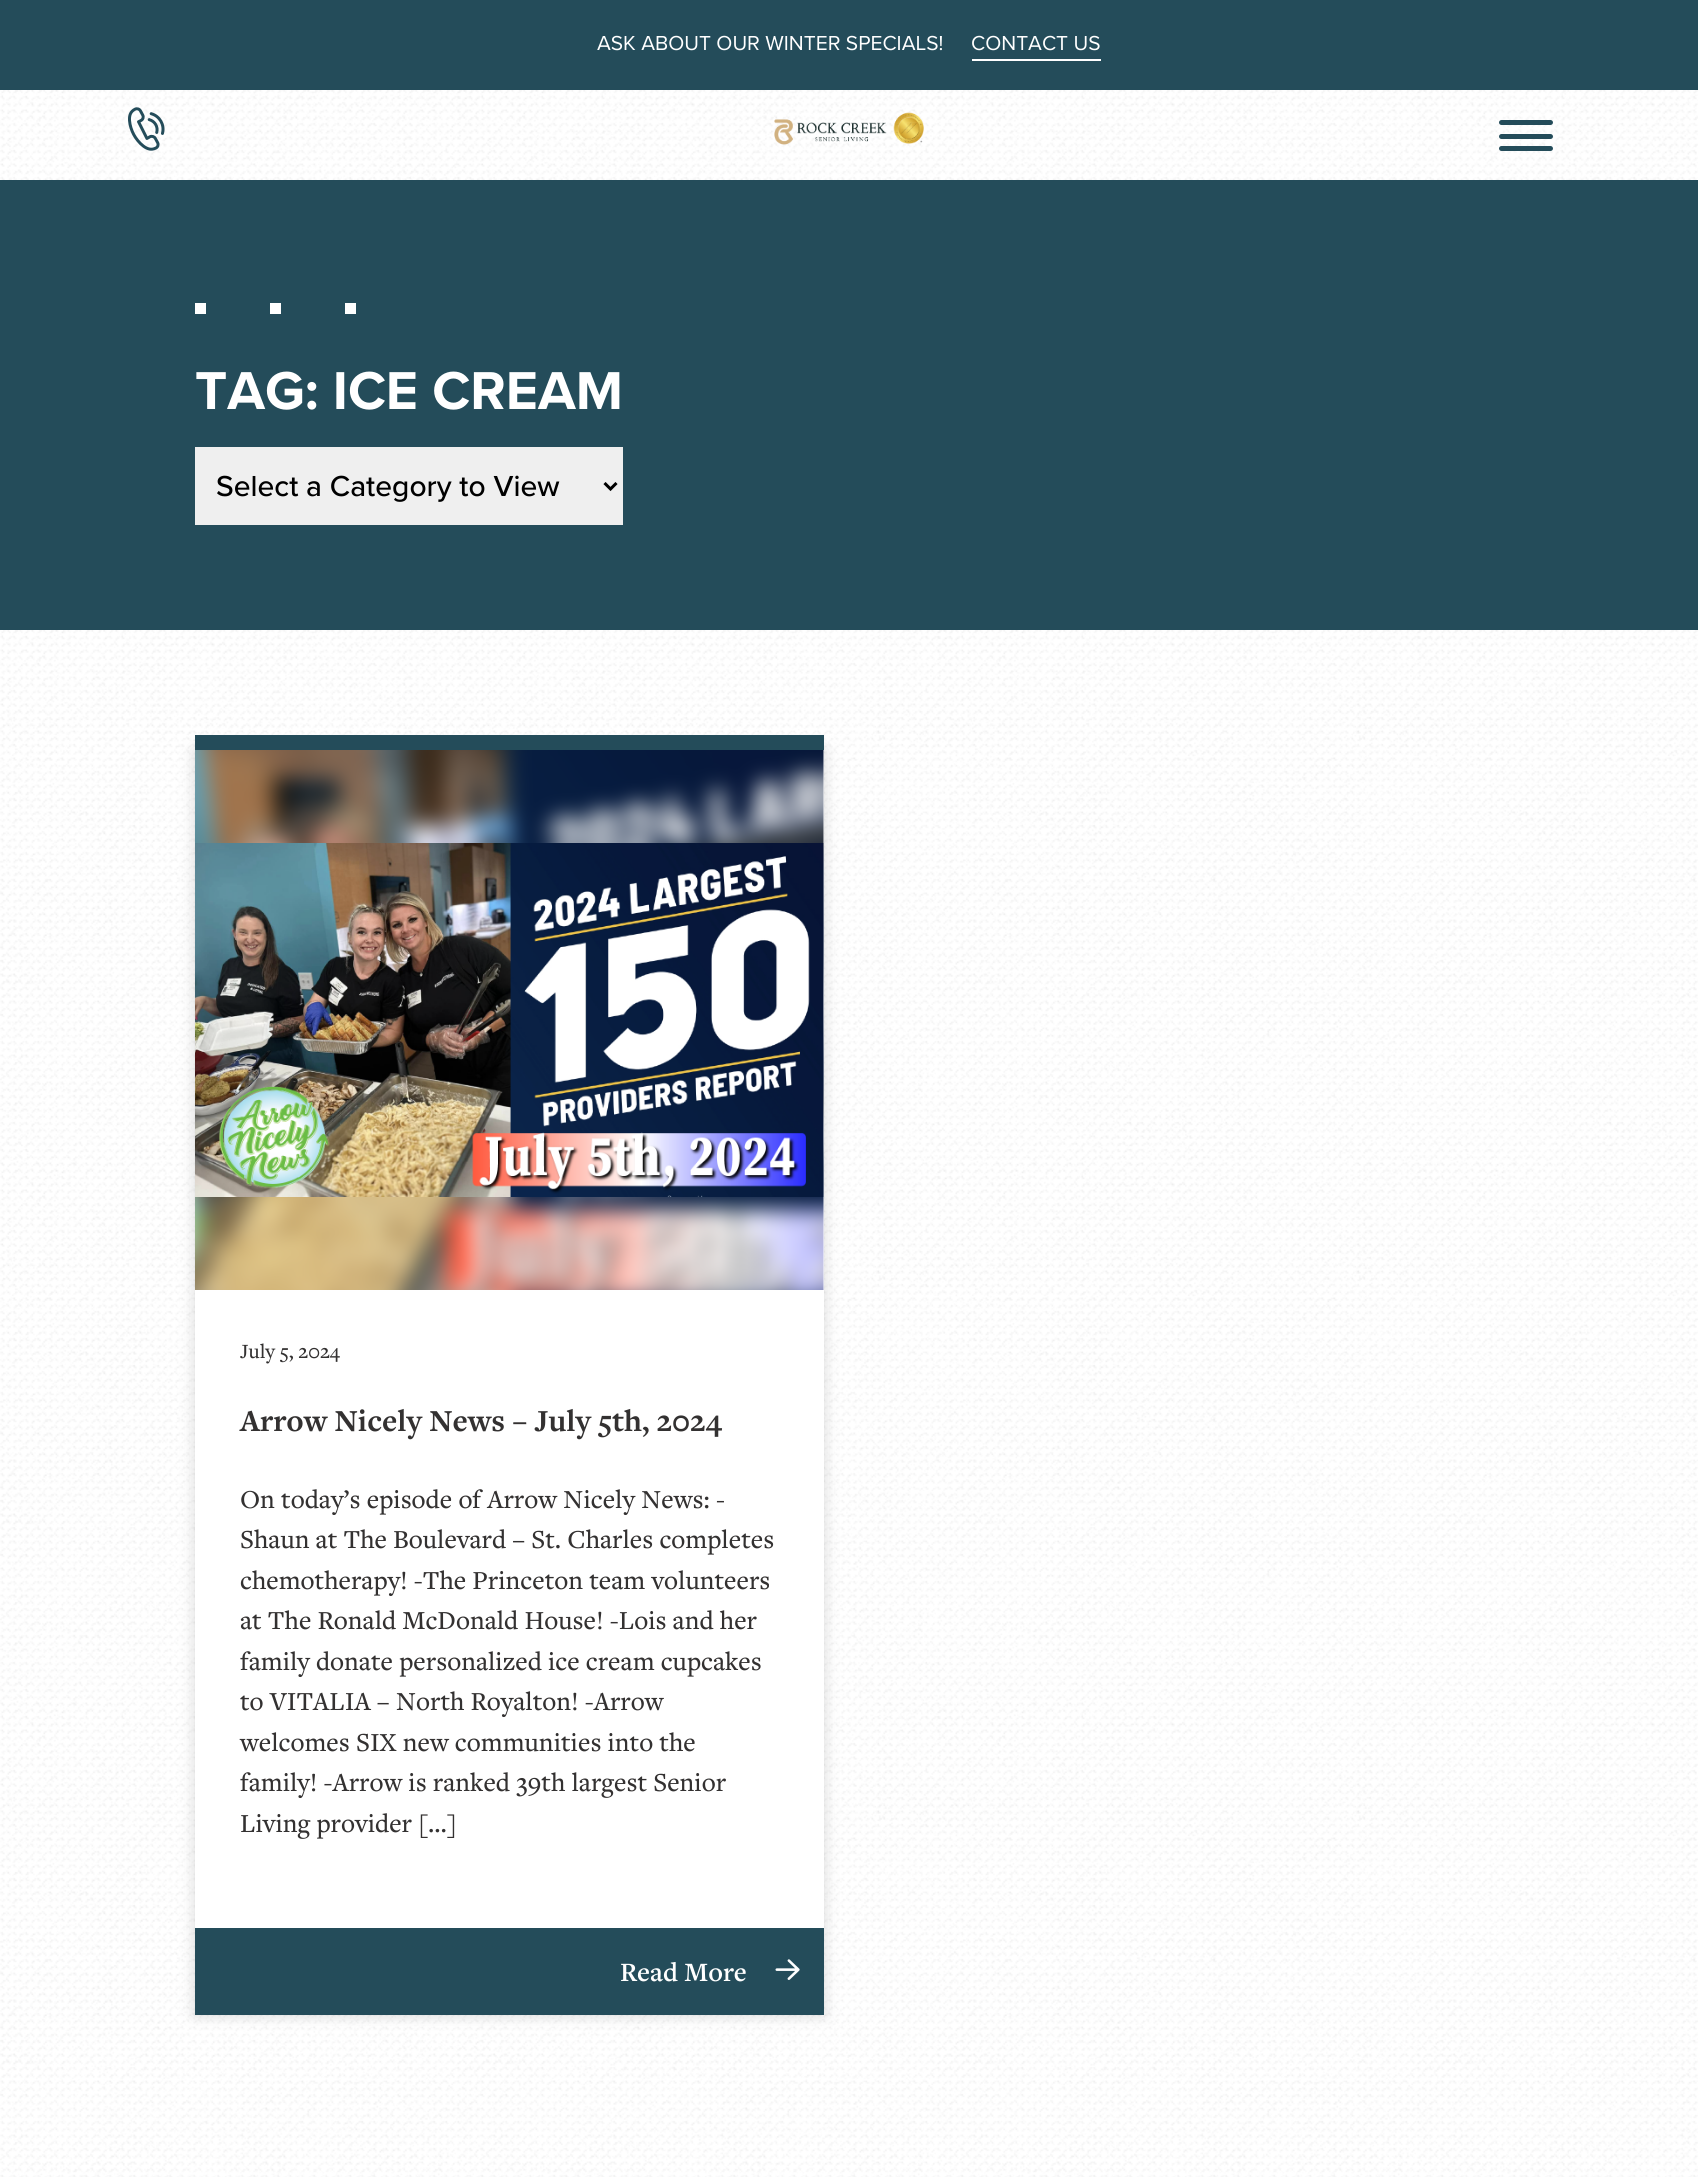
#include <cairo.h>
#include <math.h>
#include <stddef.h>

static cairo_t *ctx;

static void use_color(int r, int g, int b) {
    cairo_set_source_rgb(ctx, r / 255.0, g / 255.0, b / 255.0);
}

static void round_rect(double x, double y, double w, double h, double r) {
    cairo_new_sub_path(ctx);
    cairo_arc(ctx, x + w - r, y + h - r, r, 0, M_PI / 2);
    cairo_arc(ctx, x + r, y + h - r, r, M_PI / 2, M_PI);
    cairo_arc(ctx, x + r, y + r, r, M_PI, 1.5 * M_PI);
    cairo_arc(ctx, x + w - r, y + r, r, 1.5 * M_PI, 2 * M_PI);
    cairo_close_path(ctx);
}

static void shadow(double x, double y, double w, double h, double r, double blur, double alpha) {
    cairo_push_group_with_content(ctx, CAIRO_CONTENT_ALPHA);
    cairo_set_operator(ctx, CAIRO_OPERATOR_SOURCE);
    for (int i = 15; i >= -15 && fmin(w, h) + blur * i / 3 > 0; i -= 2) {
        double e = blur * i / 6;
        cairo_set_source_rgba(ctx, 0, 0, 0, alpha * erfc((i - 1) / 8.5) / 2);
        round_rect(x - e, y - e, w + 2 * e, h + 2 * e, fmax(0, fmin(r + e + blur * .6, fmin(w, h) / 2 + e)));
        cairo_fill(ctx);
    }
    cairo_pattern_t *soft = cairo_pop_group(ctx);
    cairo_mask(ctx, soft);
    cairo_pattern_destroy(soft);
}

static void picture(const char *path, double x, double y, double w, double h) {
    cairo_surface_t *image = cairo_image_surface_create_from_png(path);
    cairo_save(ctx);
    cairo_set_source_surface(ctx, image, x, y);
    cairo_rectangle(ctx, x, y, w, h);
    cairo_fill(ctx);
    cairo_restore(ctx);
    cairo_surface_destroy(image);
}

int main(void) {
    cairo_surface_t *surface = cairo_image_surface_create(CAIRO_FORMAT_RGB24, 1698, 2177);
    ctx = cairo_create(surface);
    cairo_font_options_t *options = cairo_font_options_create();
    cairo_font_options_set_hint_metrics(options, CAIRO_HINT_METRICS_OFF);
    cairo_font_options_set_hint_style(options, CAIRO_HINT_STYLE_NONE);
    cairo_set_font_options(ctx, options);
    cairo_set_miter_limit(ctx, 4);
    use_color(255, 255, 255);
    cairo_paint(ctx);
    picture("img1.png", 0, 90, 1698, 2087);
    use_color(36, 76, 90);
    cairo_rectangle(ctx, 0, 0, 1698, 90);
    cairo_fill(ctx);
    cairo_select_font_face(ctx, "Proxima Nova", CAIRO_FONT_SLANT_NORMAL, CAIRO_FONT_WEIGHT_NORMAL);
    cairo_set_font_size(ctx, 21);
    use_color(255, 255, 255);
    cairo_move_to(ctx, 597, 50);
    cairo_show_text(ctx, "ASK ABOUT OUR WINTER SPECIALS!");
    cairo_move_to(ctx, 971, 50);
    cairo_show_text(ctx, "CONTACT US");
    cairo_rectangle(ctx, 972, 59, 129, 2);
    cairo_fill(ctx);
    picture("img2.png", 128, 107, 37, 44);
    picture("img3.png", 774, 112, 150, 33);
    use_color(36, 76, 90);
    round_rect(1499, 120, 54, 5, 2.5);
    cairo_fill(ctx);
    round_rect(1499, 134, 54, 5, 2.5);
    cairo_fill(ctx);
    round_rect(1499, 146, 54, 5, 2.5);
    cairo_fill(ctx);
    cairo_rectangle(ctx, 0, 180, 1698, 450);
    cairo_fill(ctx);
    use_color(255, 255, 255);
    cairo_rectangle(ctx, 195, 303, 11, 11);
    cairo_fill(ctx);
    cairo_rectangle(ctx, 270, 303, 11, 11);
    cairo_fill(ctx);
    cairo_rectangle(ctx, 345, 303, 11, 11);
    cairo_fill(ctx);
    cairo_select_font_face(ctx, "Proxima Nova", CAIRO_FONT_SLANT_NORMAL, CAIRO_FONT_WEIGHT_BOLD);
    cairo_set_font_size(ctx, 55.25);
    cairo_move_to(ctx, 195, 409);
    cairo_show_text(ctx, "TAG: ICE CREAM");
    use_color(239, 239, 239);
    cairo_rectangle(ctx, 195, 447, 428, 78);
    cairo_fill(ctx);
    cairo_new_path(ctx);
    cairo_move_to(ctx, 604.5, 483);
    cairo_line_to(ctx, 610.5, 489);
    cairo_line_to(ctx, 616.5, 483);
    use_color(0, 0, 0);
    cairo_set_line_width(ctx, 3);
    cairo_stroke(ctx);
    cairo_select_font_face(ctx, "Proxima Nova Medium", CAIRO_FONT_SLANT_NORMAL, CAIRO_FONT_WEIGHT_NORMAL);
    cairo_set_font_size(ctx, 30);
    cairo_move_to(ctx, 216, 496);
    cairo_show_text(ctx, "Select a Category to View");
    use_color(78, 78, 78);
    shadow(195, 750, 629, 1265, 0, 7.5, 0.22);
    use_color(255, 255, 255);
    cairo_rectangle(ctx, 195, 750, 629, 1178);
    cairo_fill(ctx);
    use_color(36, 76, 90);
    cairo_rectangle(ctx, 195, 735, 629, 15);
    cairo_fill(ctx);
    picture("img4.png", 195, 750, 629, 540);
    picture("img5.png", 195, 843, 629, 354);
    cairo_select_font_face(ctx, "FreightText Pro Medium", CAIRO_FONT_SLANT_NORMAL, CAIRO_FONT_WEIGHT_NORMAL);
    cairo_set_font_size(ctx, 21);
    use_color(51, 49, 49);
    cairo_move_to(ctx, 240, 1358);
    cairo_show_text(ctx, "July 5, 2024");
    cairo_select_font_face(ctx, "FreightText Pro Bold", CAIRO_FONT_SLANT_NORMAL, CAIRO_FONT_WEIGHT_BOLD);
    cairo_set_font_size(ctx, 31.75);
    cairo_move_to(ctx, 240, 1431);
    cairo_show_text(ctx, "Arrow Nicely News – July 5th, 2024");
    cairo_select_font_face(ctx, "FreightText Pro Medium", CAIRO_FONT_SLANT_NORMAL, CAIRO_FONT_WEIGHT_NORMAL);
    cairo_set_font_size(ctx, 27);
    cairo_move_to(ctx, 240, 1508);
    cairo_show_text(ctx, "On today’s episode of Arrow Nicely News: -");
    cairo_move_to(ctx, 240, 1548);
    cairo_show_text(ctx, "Shaun at The Boulevard – St. Charles completes");
    cairo_move_to(ctx, 240, 1589);
    cairo_show_text(ctx, "chemotherapy! -The Princeton team volunteers");
    cairo_move_to(ctx, 240, 1629);
    cairo_show_text(ctx, "at The Ronald McDonald House! -Lois and her");
    cairo_move_to(ctx, 240, 1670);
    cairo_show_text(ctx, "family donate personalized ice cream cupcakes");
    cairo_move_to(ctx, 240, 1710);
    cairo_show_text(ctx, "to VITALIA – North Royalton! -Arrow");
    cairo_move_to(ctx, 240, 1751);
    cairo_show_text(ctx, "welcomes SIX new communities into the");
    cairo_move_to(ctx, 240, 1791);
    cairo_show_text(ctx, "family! -Arrow is ranked 39th largest Senior");
    cairo_move_to(ctx, 240, 1832);
    cairo_show_text(ctx, "Living provider […]");
    use_color(36, 76, 90);
    cairo_rectangle(ctx, 195, 1928, 629, 87);
    cairo_fill(ctx);
    cairo_select_font_face(ctx, "FreightText Pro SemiBold", CAIRO_FONT_SLANT_NORMAL, CAIRO_FONT_WEIGHT_NORMAL);
    cairo_set_font_size(ctx, 27.5);
    use_color(255, 255, 255);
    cairo_move_to(ctx, 620, 1981);
    cairo_show_text(ctx, "Read More");
    picture("img6.png", 775, 1959, 25, 21);
    cairo_surface_write_to_png(surface, "result.png");
    cairo_font_options_destroy(options);
    cairo_destroy(ctx);
    cairo_surface_destroy(surface);
    return 0;
}
